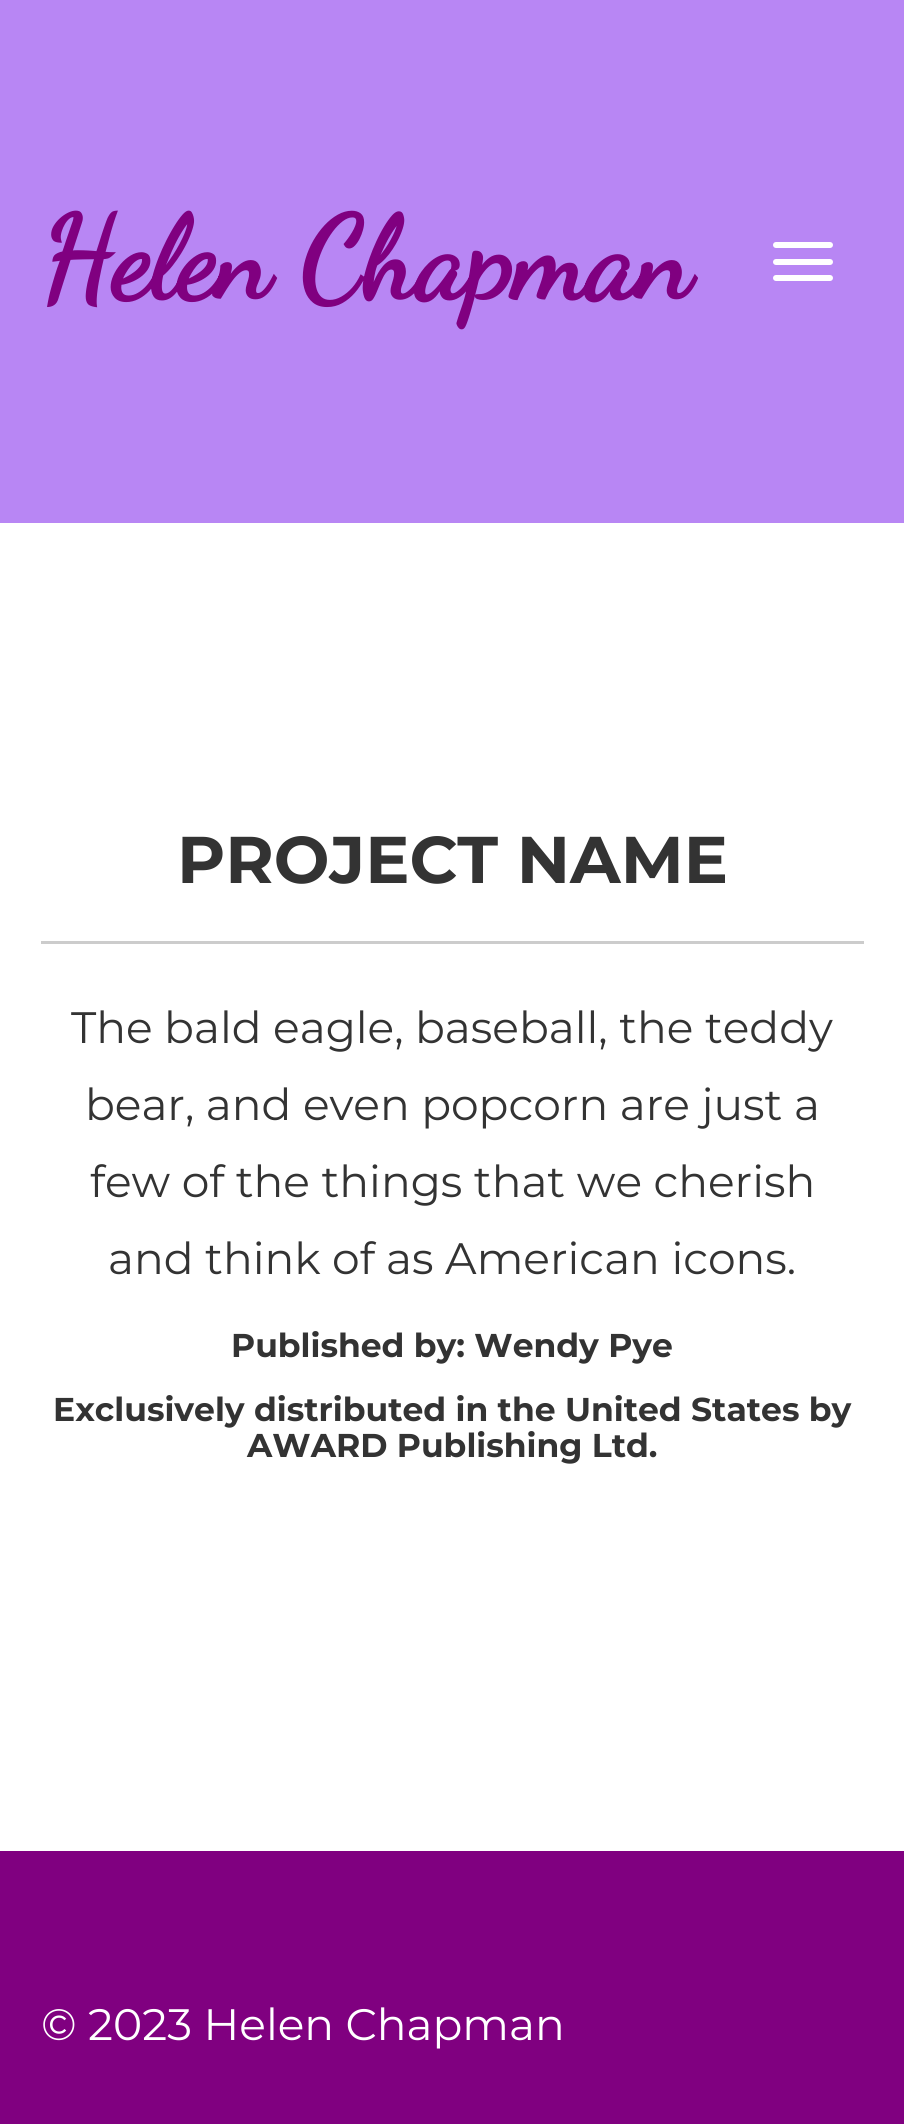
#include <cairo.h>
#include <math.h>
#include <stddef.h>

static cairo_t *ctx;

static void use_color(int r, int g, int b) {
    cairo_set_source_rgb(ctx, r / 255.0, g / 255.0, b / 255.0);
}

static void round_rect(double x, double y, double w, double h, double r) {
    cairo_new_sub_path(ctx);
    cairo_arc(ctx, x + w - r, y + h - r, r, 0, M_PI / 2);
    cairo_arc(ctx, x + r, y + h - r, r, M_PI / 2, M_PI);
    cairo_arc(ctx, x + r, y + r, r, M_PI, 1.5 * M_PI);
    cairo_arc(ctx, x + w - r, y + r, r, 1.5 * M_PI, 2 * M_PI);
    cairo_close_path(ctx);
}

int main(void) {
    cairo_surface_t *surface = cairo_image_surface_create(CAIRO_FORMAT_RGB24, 904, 2124);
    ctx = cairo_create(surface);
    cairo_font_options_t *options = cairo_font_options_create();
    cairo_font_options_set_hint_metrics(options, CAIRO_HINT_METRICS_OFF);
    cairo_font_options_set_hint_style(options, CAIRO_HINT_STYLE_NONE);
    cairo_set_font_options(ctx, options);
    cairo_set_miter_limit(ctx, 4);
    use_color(255, 255, 255);
    cairo_paint(ctx);
    use_color(184, 134, 244);
    cairo_rectangle(ctx, 0, 0, 904, 523);
    cairo_fill(ctx);
    cairo_select_font_face(ctx, "Dancing Script", CAIRO_FONT_SLANT_NORMAL, CAIRO_FONT_WEIGHT_BOLD);
    cairo_set_font_size(ctx, 115.5);
    use_color(128, 0, 128);
    cairo_move_to(ctx, 41, 297);
    cairo_show_text(ctx, "Helen Chapman");
    use_color(255, 255, 255);
    round_rect(773, 242, 60, 6, 3);
    cairo_fill(ctx);
    round_rect(773, 259, 60, 6, 3);
    cairo_fill(ctx);
    round_rect(773, 275, 60, 6, 3);
    cairo_fill(ctx);
    cairo_select_font_face(ctx, "Montserrat", CAIRO_FONT_SLANT_NORMAL, CAIRO_FONT_WEIGHT_BOLD);
    cairo_set_font_size(ctx, 66);
    use_color(51, 51, 51);
    cairo_move_to(ctx, 177, 883);
    cairo_show_text(ctx, "PROJECT NAME");
    use_color(204, 204, 204);
    cairo_rectangle(ctx, 41, 941, 823, 3);
    cairo_fill(ctx);
    cairo_select_font_face(ctx, "Montserrat", CAIRO_FONT_SLANT_NORMAL, CAIRO_FONT_WEIGHT_NORMAL);
    cairo_set_font_size(ctx, 44);
    use_color(51, 51, 51);
    cairo_move_to(ctx, 71, 1043);
    cairo_show_text(ctx, "The bald eagle, baseball, the teddy");
    cairo_move_to(ctx, 85, 1120);
    cairo_show_text(ctx, "bear, and even popcorn are just a");
    cairo_move_to(ctx, 90, 1197);
    cairo_show_text(ctx, "few of the things that we cherish");
    cairo_move_to(ctx, 108, 1274);
    cairo_show_text(ctx, "and think of as American icons.");
    cairo_select_font_face(ctx, "Montserrat", CAIRO_FONT_SLANT_NORMAL, CAIRO_FONT_WEIGHT_BOLD);
    cairo_set_font_size(ctx, 33);
    cairo_move_to(ctx, 231, 1357);
    cairo_show_text(ctx, "Published by: Wendy Pye");
    cairo_move_to(ctx, 53, 1421);
    cairo_show_text(ctx, "Exclusively distributed in the United States by");
    cairo_move_to(ctx, 247, 1457);
    cairo_show_text(ctx, "AWARD Publishing Ltd.");
    use_color(128, 0, 128);
    cairo_rectangle(ctx, 0, 1851, 904, 273);
    cairo_fill(ctx);
    cairo_select_font_face(ctx, "Montserrat", CAIRO_FONT_SLANT_NORMAL, CAIRO_FONT_WEIGHT_NORMAL);
    cairo_set_font_size(ctx, 44);
    use_color(255, 255, 255);
    cairo_move_to(ctx, 41, 2040);
    cairo_show_text(ctx, "© 2023 Helen Chapman");
    cairo_surface_write_to_png(surface, "result.png");
    cairo_font_options_destroy(options);
    cairo_destroy(ctx);
    cairo_surface_destroy(surface);
    return 0;
}
